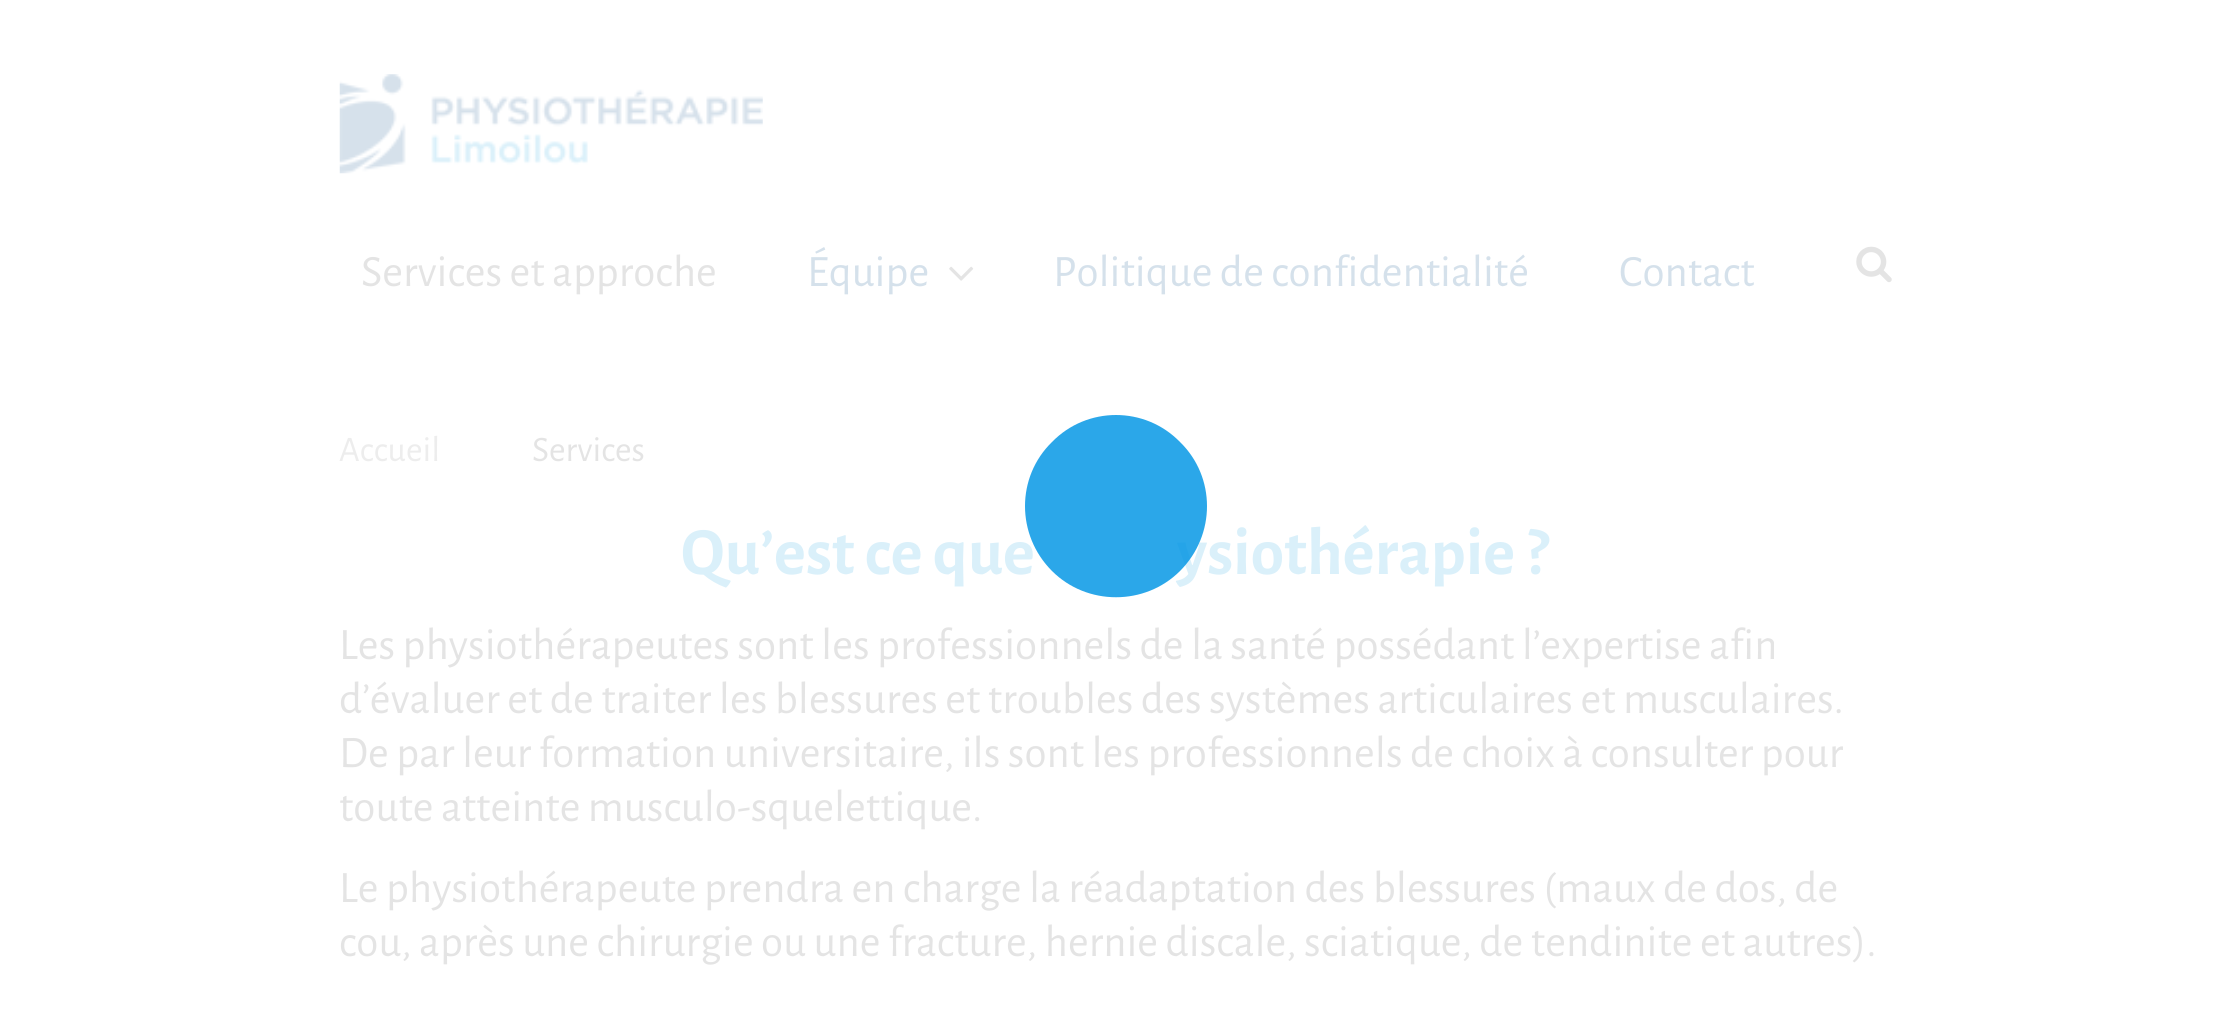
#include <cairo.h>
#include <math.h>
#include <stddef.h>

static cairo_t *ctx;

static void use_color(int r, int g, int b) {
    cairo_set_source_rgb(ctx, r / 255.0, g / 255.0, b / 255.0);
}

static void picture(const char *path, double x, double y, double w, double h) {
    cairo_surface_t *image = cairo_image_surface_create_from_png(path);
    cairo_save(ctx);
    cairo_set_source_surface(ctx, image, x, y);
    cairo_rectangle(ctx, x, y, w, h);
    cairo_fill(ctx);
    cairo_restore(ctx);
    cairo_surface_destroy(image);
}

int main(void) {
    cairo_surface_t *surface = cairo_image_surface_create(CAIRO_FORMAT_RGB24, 2228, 1009);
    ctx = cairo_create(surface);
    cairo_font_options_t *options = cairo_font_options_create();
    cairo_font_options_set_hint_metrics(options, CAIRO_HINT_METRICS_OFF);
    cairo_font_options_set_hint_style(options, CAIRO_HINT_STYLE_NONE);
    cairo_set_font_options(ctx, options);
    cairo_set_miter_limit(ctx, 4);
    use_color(255, 255, 255);
    cairo_paint(ctx);
    picture("img1.png", 339, 74, 424, 100);
    cairo_select_font_face(ctx, "Alegreya Sans", CAIRO_FONT_SLANT_NORMAL, CAIRO_FONT_WEIGHT_NORMAL);
    cairo_set_font_size(ctx, 45);
    use_color(228, 228, 228);
    cairo_move_to(ctx, 361, 286);
    cairo_show_text(ctx, "Services et approche");
    use_color(213, 225, 235);
    cairo_move_to(ctx, 807, 286);
    cairo_show_text(ctx, "Équipe");
    picture("img2.png", 949, 266, 25, 15);
    cairo_move_to(ctx, 1053, 286);
    cairo_show_text(ctx, "Politique de confidentialité");
    cairo_move_to(ctx, 1619, 286);
    cairo_show_text(ctx, "Contact");
    picture("img3.png", 1856, 246, 36, 37);
    cairo_set_font_size(ctx, 36);
    use_color(237, 237, 237);
    cairo_move_to(ctx, 339, 461);
    cairo_show_text(ctx, "Accueil");
    use_color(228, 228, 228);
    cairo_move_to(ctx, 532, 461);
    cairo_show_text(ctx, "Services");
    cairo_select_font_face(ctx, "Alegreya Sans", CAIRO_FONT_SLANT_NORMAL, CAIRO_FONT_WEIGHT_BOLD);
    cairo_set_font_size(ctx, 67.5);
    use_color(218, 240, 250);
    cairo_move_to(ctx, 681, 574);
    cairo_show_text(ctx, "Qu’est ce que");
    cairo_move_to(ctx, 1177, 574);
    cairo_show_text(ctx, "ysiothérapie ?");
    cairo_select_font_face(ctx, "Alegreya Sans", CAIRO_FONT_SLANT_NORMAL, CAIRO_FONT_WEIGHT_NORMAL);
    cairo_set_font_size(ctx, 45);
    use_color(228, 228, 228);
    cairo_move_to(ctx, 339, 659);
    cairo_show_text(ctx, "Les physiothérapeutes sont les professionnels de la santé possédant l’expertise afin");
    cairo_move_to(ctx, 339, 713);
    cairo_show_text(ctx, "d’évaluer et de traiter les blessures et troubles des systèmes articulaires et musculaires.");
    cairo_move_to(ctx, 339, 767);
    cairo_show_text(ctx, "De par leur formation universitaire, ils sont les professionnels de choix à consulter pour");
    cairo_move_to(ctx, 339, 821);
    cairo_show_text(ctx, "toute atteinte musculo-squelettique.");
    cairo_move_to(ctx, 339, 902);
    cairo_show_text(ctx, "Le physiothérapeute prendra en charge la réadaptation des blessures (maux de dos, de");
    cairo_move_to(ctx, 339, 956);
    cairo_show_text(ctx, "cou, après une chirurgie ou une fracture, hernie discale, sciatique, de tendinite et autres).");
    cairo_set_source_rgba(ctx, 0, 0.584, 0.898, 0.83);
    cairo_new_path(ctx);
    cairo_move_to(ctx, 1180, 442);
    cairo_curve_to(ctx, 1216, 477, 1216, 535, 1180, 571);
    cairo_curve_to(ctx, 1145, 606, 1087, 606, 1052, 571);
    cairo_curve_to(ctx, 1016, 535, 1016, 477, 1052, 442);
    cairo_curve_to(ctx, 1087, 406, 1145, 406, 1180, 442);
    cairo_close_path(ctx);
    cairo_fill(ctx);
    cairo_surface_write_to_png(surface, "result.png");
    cairo_font_options_destroy(options);
    cairo_destroy(ctx);
    cairo_surface_destroy(surface);
    return 0;
}
